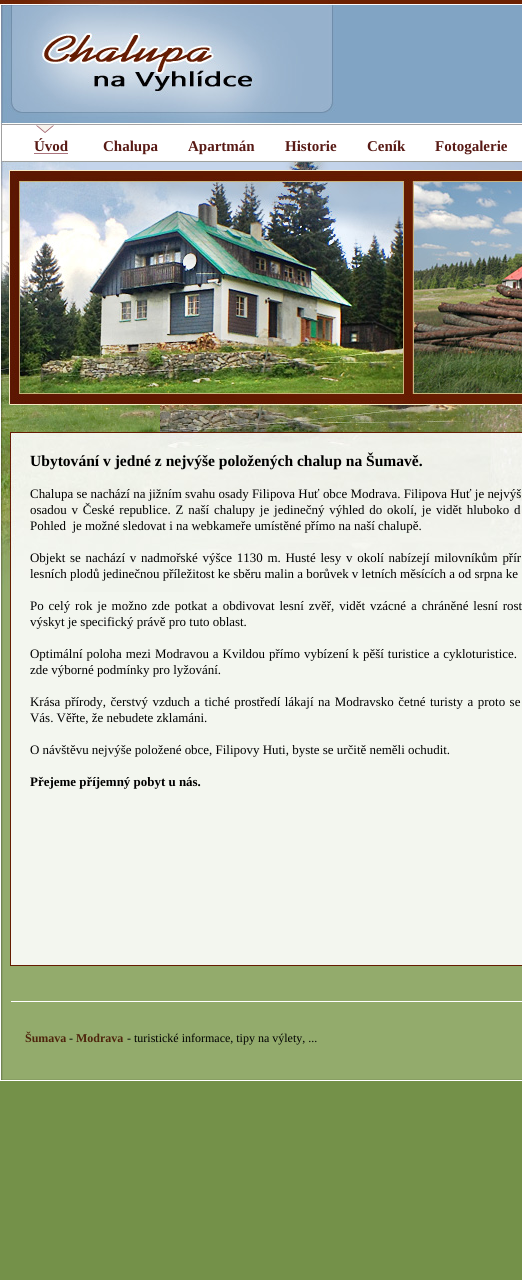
#include <cairo.h>
#include <math.h>
#include <stddef.h>

static cairo_t *ctx;

static void use_color(int r, int g, int b) {
    cairo_set_source_rgb(ctx, r / 255.0, g / 255.0, b / 255.0);
}

static void spaced_text(double x, double y, const char *s, double letter, double word) {
    cairo_move_to(ctx, x, y);
    while (*s) {
        char ch[5] = {0};
        int n = 0;
        do ch[n++] = *s++; while ((*s & 0xC0) == 0x80);
        cairo_show_text(ctx, ch);
        cairo_rel_move_to(ctx, letter + word * (*ch == ' '), 0);
    }
}

static void picture(const char *path, double x, double y, double w, double h) {
    cairo_surface_t *image = cairo_image_surface_create_from_png(path);
    cairo_save(ctx);
    cairo_set_source_surface(ctx, image, x, y);
    cairo_rectangle(ctx, x, y, w, h);
    cairo_fill(ctx);
    cairo_restore(ctx);
    cairo_surface_destroy(image);
}

int main(void) {
    cairo_surface_t *surface = cairo_image_surface_create(CAIRO_FORMAT_RGB24, 522, 1280);
    ctx = cairo_create(surface);
    cairo_font_options_t *options = cairo_font_options_create();
    cairo_font_options_set_hint_metrics(options, CAIRO_HINT_METRICS_OFF);
    cairo_font_options_set_hint_style(options, CAIRO_HINT_STYLE_NONE);
    cairo_set_font_options(ctx, options);
    cairo_set_miter_limit(ctx, 4);
    use_color(116, 145, 73);
    cairo_paint(ctx);
    picture("img1.png", 0, 0, 522, 432);
    picture("img2.png", 19, 162, 503, 232);
    picture("img3.png", 0, 592, 522, 373);
    picture("img4.png", 0, 432, 522, 160);
    picture("img5.png", 3, 125, 51, 8);
    cairo_select_font_face(ctx, "Liberation Serif", CAIRO_FONT_SLANT_NORMAL, CAIRO_FONT_WEIGHT_BOLD);
    cairo_set_font_size(ctx, 15);
    use_color(88, 26, 21);
    cairo_move_to(ctx, 34, 151);
    cairo_show_text(ctx, "Úvod");
    use_color(171, 116, 125);
    cairo_rectangle(ctx, 34, 153, 34, 1);
    cairo_fill(ctx);
    use_color(88, 26, 21);
    cairo_move_to(ctx, 103, 151);
    cairo_show_text(ctx, "Chalupa");
    cairo_move_to(ctx, 188, 151);
    cairo_show_text(ctx, "Apartmán");
    cairo_move_to(ctx, 285, 151);
    cairo_show_text(ctx, "Historie");
    cairo_move_to(ctx, 367, 151);
    cairo_show_text(ctx, "Ceník");
    cairo_move_to(ctx, 435, 151);
    cairo_show_text(ctx, "Fotogalerie");
    cairo_set_font_size(ctx, 15.55);
    use_color(0, 0, 0);
    cairo_move_to(ctx, 30, 466);
    cairo_show_text(ctx, "Ubytování v jedné z nejvýše položených chalup na Šumavě.");
    cairo_select_font_face(ctx, "Liberation Serif", CAIRO_FONT_SLANT_NORMAL, CAIRO_FONT_WEIGHT_NORMAL);
    cairo_set_font_size(ctx, 12.95);
    cairo_move_to(ctx, 30, 498);
    cairo_show_text(ctx, "Chalupa se nachází na jižním svahu osady Filipova Huť obce Modrava. Filipova Huť je nejvýš");
    spaced_text(30, 514, "osadou v České republice. Z naší chalupy je jedinečný výhled do okolí, je vidět hluboko d", 0, 1.6);
    cairo_move_to(ctx, 30, 530);
    cairo_show_text(ctx, "Pohled  je možné sledovat i na webkameře umístěné přímo na naší chalupě.");
    spaced_text(30, 562, "Objekt se nachází v nadmořské výšce 1130 m. Husté lesy v okolí nabízejí milovníkům přír", 0, 1.5);
    cairo_move_to(ctx, 30, 578);
    cairo_show_text(ctx, "lesních plodů jedinečnou příležitost ke sběru malin a borůvek v letních měsících a od srpna ke");
    spaced_text(30, 610, "Po celý rok je možno zde potkat a obdivovat lesní zvěř, vidět vzácné a chráněné lesní rost", 0, 1.7);
    cairo_move_to(ctx, 30, 626);
    cairo_show_text(ctx, "výskyt je specifický právě pro tuto oblast.");
    spaced_text(30, 658, "Optimální poloha mezi Modravou a Kvildou přímo vybízení k pěší turistice a cykloturistice.", 0, 0.75);
    cairo_move_to(ctx, 30, 674);
    cairo_show_text(ctx, "zde výborné podmínky pro lyžování.");
    spaced_text(30, 706, "Krása přírody, čerstvý vzduch a tiché prostředí lákají na Modravsko četné turisty a proto se", 0, 1.25);
    cairo_move_to(ctx, 30, 722);
    cairo_show_text(ctx, "Vás. Věřte, že nebudete zklamáni.");
    cairo_move_to(ctx, 30, 754);
    cairo_show_text(ctx, "O návštěvu nejvýše položené obce, Filipovy Huti, byste se určitě neměli ochudit.");
    cairo_select_font_face(ctx, "Liberation Serif", CAIRO_FONT_SLANT_NORMAL, CAIRO_FONT_WEIGHT_BOLD);
    cairo_move_to(ctx, 30, 786);
    cairo_show_text(ctx, "Přejeme příjemný pobyt u nás.");
    picture("img6.png", 0, 965, 522, 139);
    cairo_set_font_size(ctx, 12);
    use_color(78, 36, 12);
    cairo_move_to(ctx, 25, 1042);
    cairo_show_text(ctx, "Šumava");
    cairo_select_font_face(ctx, "Liberation Serif", CAIRO_FONT_SLANT_NORMAL, CAIRO_FONT_WEIGHT_NORMAL);
    use_color(0, 0, 0);
    cairo_move_to(ctx, 69, 1042);
    cairo_show_text(ctx, "-");
    cairo_select_font_face(ctx, "Liberation Serif", CAIRO_FONT_SLANT_NORMAL, CAIRO_FONT_WEIGHT_BOLD);
    use_color(78, 36, 12);
    cairo_move_to(ctx, 76, 1042);
    cairo_show_text(ctx, "Modrava");
    cairo_select_font_face(ctx, "Liberation Serif", CAIRO_FONT_SLANT_NORMAL, CAIRO_FONT_WEIGHT_NORMAL);
    use_color(0, 0, 0);
    cairo_move_to(ctx, 127, 1042);
    cairo_show_text(ctx, "- turistické informace, tipy na výlety, ...");
    cairo_surface_write_to_png(surface, "result.png");
    cairo_font_options_destroy(options);
    cairo_destroy(ctx);
    cairo_surface_destroy(surface);
    return 0;
}
